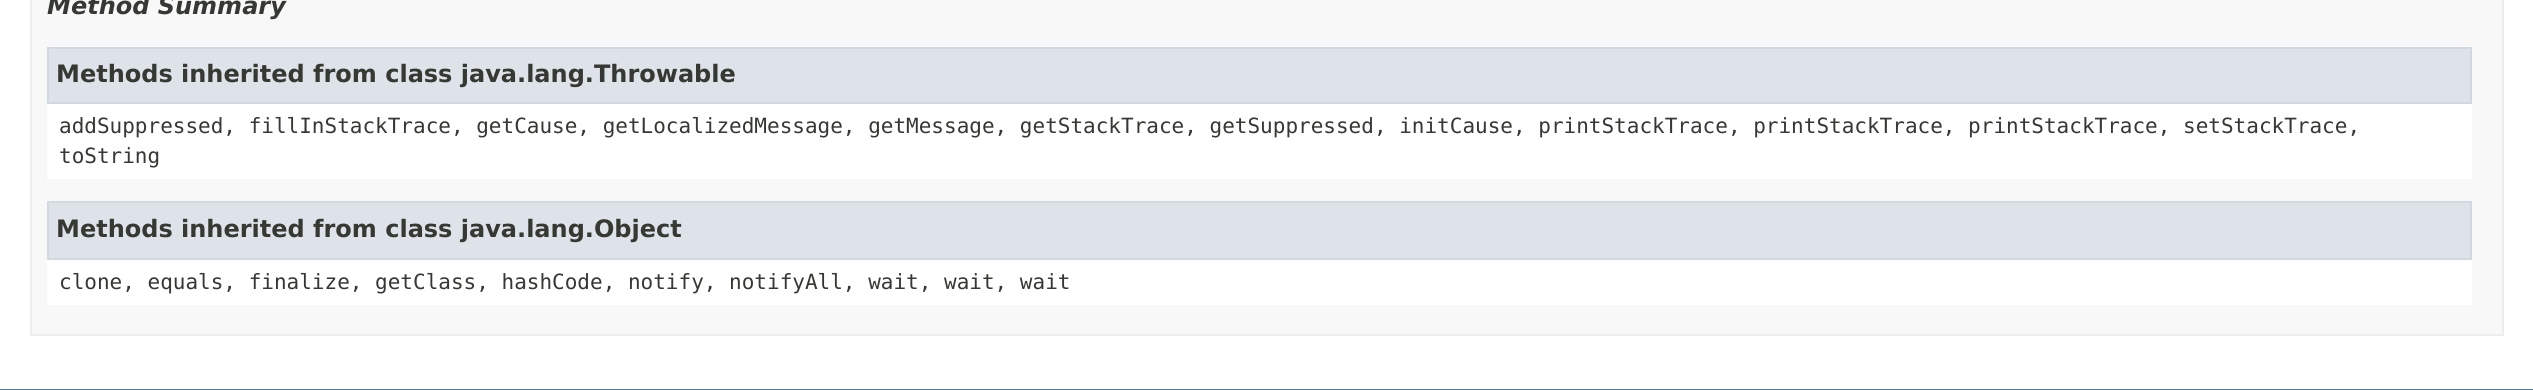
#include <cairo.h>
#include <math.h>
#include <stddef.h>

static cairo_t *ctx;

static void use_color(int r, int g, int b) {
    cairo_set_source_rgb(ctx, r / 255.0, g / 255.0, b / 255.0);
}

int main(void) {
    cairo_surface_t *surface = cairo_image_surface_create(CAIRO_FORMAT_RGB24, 2533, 390);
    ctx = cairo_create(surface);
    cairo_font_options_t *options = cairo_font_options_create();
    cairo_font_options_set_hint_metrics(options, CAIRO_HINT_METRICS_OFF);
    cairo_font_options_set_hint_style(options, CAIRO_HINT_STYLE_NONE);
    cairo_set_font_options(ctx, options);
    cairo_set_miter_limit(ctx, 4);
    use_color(255, 255, 255);
    cairo_paint(ctx);
    use_color(248, 248, 248);
    cairo_rectangle(ctx, 31, -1, 2472, 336);
    cairo_fill_preserve(ctx);
    use_color(237, 237, 237);
    cairo_stroke(ctx);
    cairo_select_font_face(ctx, "DejaVu Sans", CAIRO_FONT_SLANT_ITALIC, CAIRO_FONT_WEIGHT_BOLD);
    cairo_set_font_size(ctx, 24);
    use_color(53, 56, 51);
    cairo_move_to(ctx, 47, 14);
    cairo_show_text(ctx, "Method Summary");
    use_color(255, 255, 255);
    cairo_rectangle(ctx, 47, 104, 2425, 75);
    cairo_fill(ctx);
    use_color(222, 227, 233);
    cairo_rectangle(ctx, 48, 48, 2423, 55);
    cairo_fill_preserve(ctx);
    use_color(208, 217, 224);
    cairo_stroke(ctx);
    cairo_select_font_face(ctx, "DejaVu Sans", CAIRO_FONT_SLANT_NORMAL, CAIRO_FONT_WEIGHT_BOLD);
    use_color(53, 56, 51);
    cairo_move_to(ctx, 56, 82);
    cairo_show_text(ctx, "Methods inherited from class java.lang.Throwable");
    cairo_select_font_face(ctx, "DejaVu Sans Mono", CAIRO_FONT_SLANT_NORMAL, CAIRO_FONT_WEIGHT_NORMAL);
    cairo_set_font_size(ctx, 21);
    cairo_move_to(ctx, 59, 133);
    cairo_show_text(ctx, "addSuppressed, fillInStackTrace, getCause, getLocalizedMessage, getMessage, getStackTrace, getSuppressed, initCause, printStackTrace, printStackTrace, printStackTrace, setStackTrace,");
    cairo_move_to(ctx, 59, 163);
    cairo_show_text(ctx, "toString");
    use_color(255, 255, 255);
    cairo_rectangle(ctx, 47, 260, 2425, 45);
    cairo_fill(ctx);
    use_color(222, 227, 233);
    cairo_rectangle(ctx, 48, 202, 2423, 57);
    cairo_fill_preserve(ctx);
    use_color(208, 217, 224);
    cairo_stroke(ctx);
    cairo_select_font_face(ctx, "DejaVu Sans", CAIRO_FONT_SLANT_NORMAL, CAIRO_FONT_WEIGHT_BOLD);
    cairo_set_font_size(ctx, 24);
    use_color(53, 56, 51);
    cairo_move_to(ctx, 56, 237);
    cairo_show_text(ctx, "Methods inherited from class java.lang.Object");
    cairo_select_font_face(ctx, "DejaVu Sans Mono", CAIRO_FONT_SLANT_NORMAL, CAIRO_FONT_WEIGHT_NORMAL);
    cairo_set_font_size(ctx, 21);
    cairo_move_to(ctx, 59, 289);
    cairo_show_text(ctx, "clone, equals, finalize, getClass, hashCode, notify, notifyAll, wait, wait, wait");
    use_color(77, 122, 151);
    cairo_rectangle(ctx, 0, 389, 2533, 1);
    cairo_fill(ctx);
    cairo_surface_write_to_png(surface, "result.png");
    cairo_font_options_destroy(options);
    cairo_destroy(ctx);
    cairo_surface_destroy(surface);
    return 0;
}
